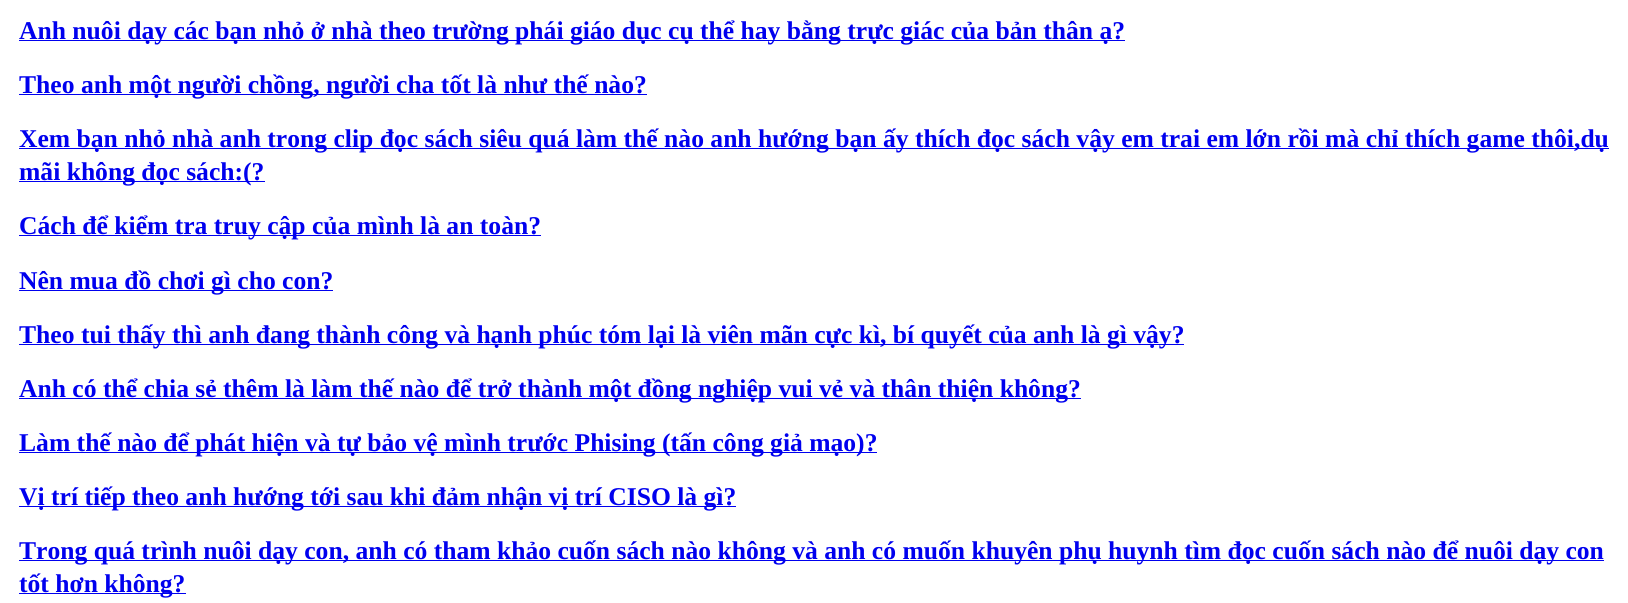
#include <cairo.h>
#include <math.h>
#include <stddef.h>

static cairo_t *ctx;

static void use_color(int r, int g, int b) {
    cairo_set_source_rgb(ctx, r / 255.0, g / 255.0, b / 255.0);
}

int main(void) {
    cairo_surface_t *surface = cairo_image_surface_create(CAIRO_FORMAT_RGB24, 1628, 603);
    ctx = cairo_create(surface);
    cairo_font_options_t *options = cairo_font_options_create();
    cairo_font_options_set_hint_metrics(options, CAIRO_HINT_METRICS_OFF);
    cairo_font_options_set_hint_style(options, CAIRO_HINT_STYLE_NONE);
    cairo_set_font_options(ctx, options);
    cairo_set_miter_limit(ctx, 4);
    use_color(255, 255, 255);
    cairo_paint(ctx);
    use_color(0, 0, 238);
    cairo_rectangle(ctx, 19, 40, 1106, 1);
    cairo_fill(ctx);
    cairo_select_font_face(ctx, "Liberation Serif", CAIRO_FONT_SLANT_NORMAL, CAIRO_FONT_WEIGHT_BOLD);
    cairo_set_font_size(ctx, 25.6);
    cairo_move_to(ctx, 19, 39);
    cairo_show_text(ctx, "Anh nuôi dạy các bạn nhỏ ở nhà theo trường phái giáo dục cụ thể hay bằng trực giác của bản thân ạ?");
    cairo_rectangle(ctx, 19, 94, 628, 1);
    cairo_fill(ctx);
    cairo_move_to(ctx, 19, 93);
    cairo_show_text(ctx, "Theo anh một người chồng, người cha tốt là như thế nào?");
    cairo_rectangle(ctx, 19, 148, 1590, 1);
    cairo_fill(ctx);
    cairo_move_to(ctx, 19, 147);
    cairo_show_text(ctx, "Xem bạn nhỏ nhà anh trong clip đọc sách siêu quá làm thế nào anh hướng bạn ấy thích đọc sách vậy em trai em lớn rồi mà chỉ thích game thôi,dụ");
    cairo_rectangle(ctx, 19, 181, 246, 1);
    cairo_fill(ctx);
    cairo_move_to(ctx, 19, 180);
    cairo_show_text(ctx, "mãi không đọc sách:(?");
    cairo_rectangle(ctx, 19, 235, 522, 1);
    cairo_fill(ctx);
    cairo_move_to(ctx, 19, 234);
    cairo_show_text(ctx, "Cách để kiểm tra truy cập của mình là an toàn?");
    cairo_rectangle(ctx, 19, 290, 314, 1);
    cairo_fill(ctx);
    cairo_move_to(ctx, 19, 289);
    cairo_show_text(ctx, "Nên mua đồ chơi gì cho con?");
    cairo_rectangle(ctx, 19, 344, 1165, 1);
    cairo_fill(ctx);
    cairo_move_to(ctx, 19, 343);
    cairo_show_text(ctx, "Theo tui thấy thì anh đang thành công và hạnh phúc tóm lại là viên mãn cực kì, bí quyết của anh là gì vậy?");
    cairo_rectangle(ctx, 19, 398, 1062, 1);
    cairo_fill(ctx);
    cairo_move_to(ctx, 19, 397);
    cairo_show_text(ctx, "Anh có thể chia sẻ thêm là làm thế nào để trở thành một đồng nghiệp vui vẻ và thân thiện không?");
    cairo_rectangle(ctx, 19, 452, 858, 1);
    cairo_fill(ctx);
    cairo_move_to(ctx, 19, 451);
    cairo_show_text(ctx, "Làm thế nào để phát hiện và tự bảo vệ mình trước Phising (tấn công giả mạo)?");
    cairo_rectangle(ctx, 19, 506, 717, 1);
    cairo_fill(ctx);
    cairo_move_to(ctx, 19, 505);
    cairo_show_text(ctx, "Vị trí tiếp theo anh hướng tới sau khi đảm nhận vị trí CISO là gì?");
    cairo_rectangle(ctx, 19, 560, 1585, 1);
    cairo_fill(ctx);
    cairo_move_to(ctx, 19, 559);
    cairo_show_text(ctx, "Trong quá trình nuôi dạy con, anh có tham khảo cuốn sách nào không và anh có muốn khuyên phụ huynh tìm đọc cuốn sách nào để nuôi dạy con");
    cairo_rectangle(ctx, 19, 593, 167, 1);
    cairo_fill(ctx);
    cairo_move_to(ctx, 19, 592);
    cairo_show_text(ctx, "tốt hơn không?");
    cairo_surface_write_to_png(surface, "result.png");
    cairo_font_options_destroy(options);
    cairo_destroy(ctx);
    cairo_surface_destroy(surface);
    return 0;
}
